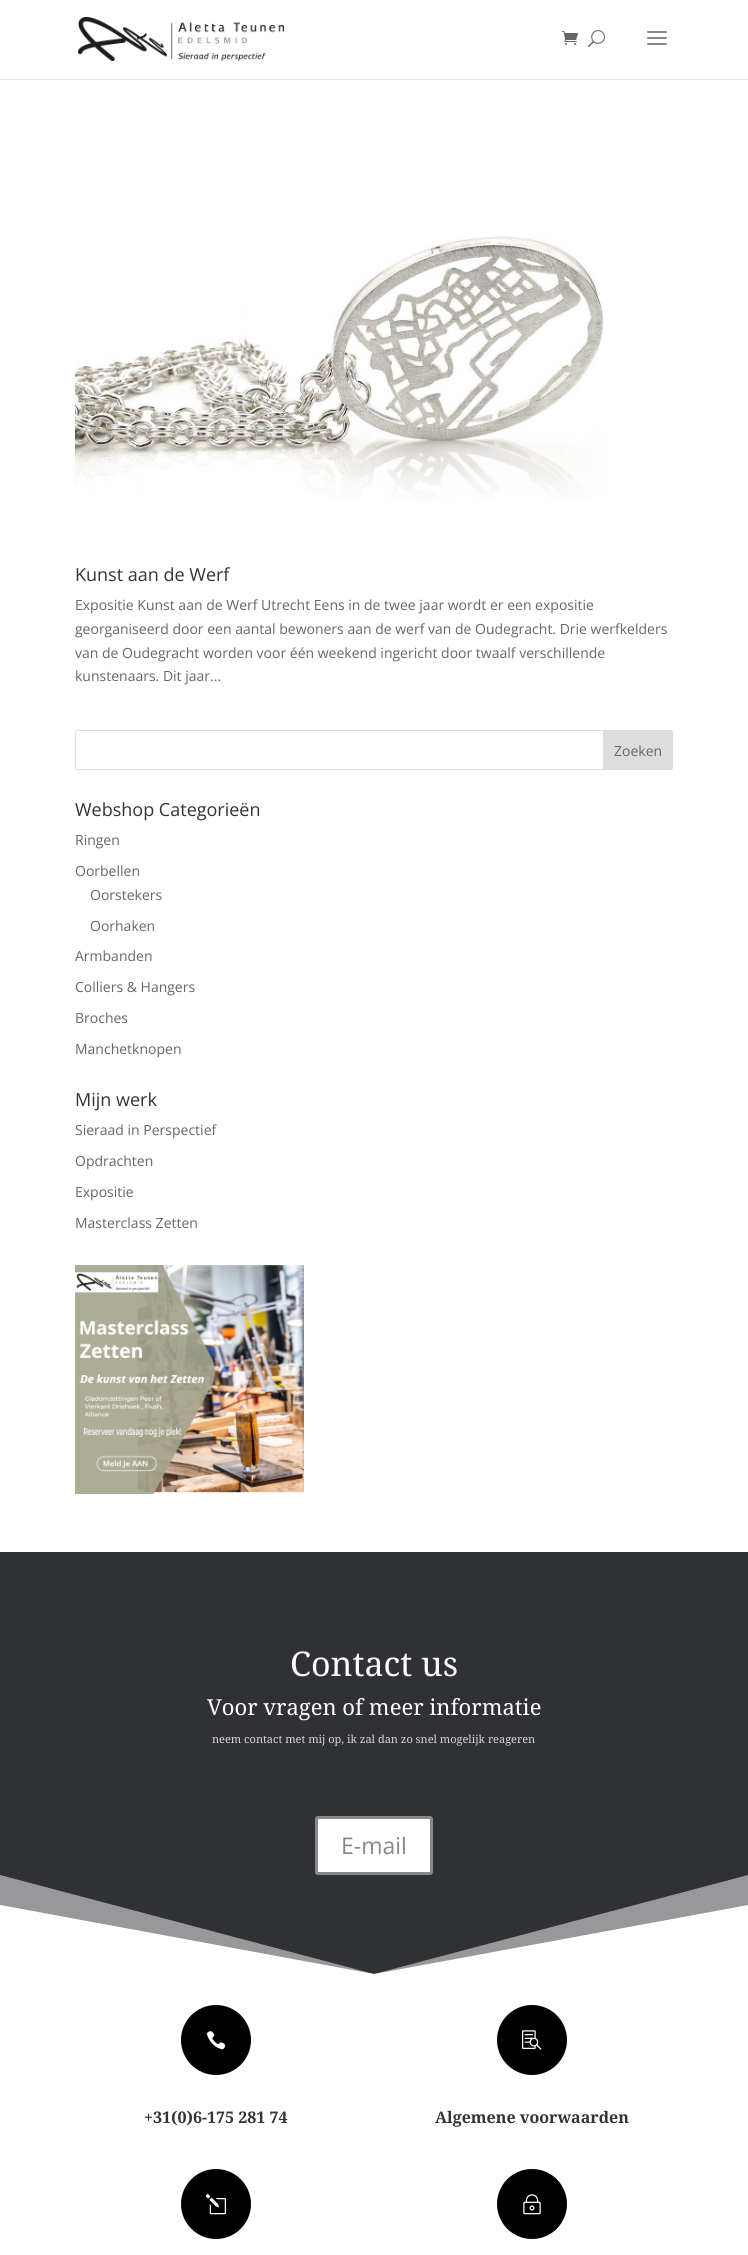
#include <cairo.h>
#include <math.h>
#include <stddef.h>

static cairo_t *ctx;

static void use_color(int r, int g, int b) {
    cairo_set_source_rgb(ctx, r / 255.0, g / 255.0, b / 255.0);
}

static void round_rect(double x, double y, double w, double h, double r) {
    cairo_new_sub_path(ctx);
    cairo_arc(ctx, x + w - r, y + h - r, r, 0, M_PI / 2);
    cairo_arc(ctx, x + r, y + h - r, r, M_PI / 2, M_PI);
    cairo_arc(ctx, x + r, y + r, r, M_PI, 1.5 * M_PI);
    cairo_arc(ctx, x + w - r, y + r, r, 1.5 * M_PI, 2 * M_PI);
    cairo_close_path(ctx);
}

static void picture(const char *path, double x, double y, double w, double h) {
    cairo_surface_t *image = cairo_image_surface_create_from_png(path);
    cairo_save(ctx);
    cairo_set_source_surface(ctx, image, x, y);
    cairo_rectangle(ctx, x, y, w, h);
    cairo_fill(ctx);
    cairo_restore(ctx);
    cairo_surface_destroy(image);
}

int main(void) {
    cairo_surface_t *surface = cairo_image_surface_create(CAIRO_FORMAT_RGB24, 748, 2255);
    ctx = cairo_create(surface);
    cairo_font_options_t *options = cairo_font_options_create();
    cairo_font_options_set_hint_metrics(options, CAIRO_HINT_METRICS_OFF);
    cairo_font_options_set_hint_style(options, CAIRO_HINT_STYLE_NONE);
    cairo_set_font_options(ctx, options);
    cairo_set_miter_limit(ctx, 4);
    use_color(255, 255, 255);
    cairo_paint(ctx);
    use_color(230, 230, 230);
    cairo_rectangle(ctx, 0, 79, 748, 1);
    cairo_fill(ctx);
    picture("img1.png", 78, 17, 206, 44);
    picture("img2.png", 562, 31, 16, 14);
    picture("img3.png", 588, 30, 17, 18);
    picture("img4.png", 647, 31, 20, 14);
    picture("img5.png", 75, 234, 529, 266);
    cairo_select_font_face(ctx, "Open Sans", CAIRO_FONT_SLANT_NORMAL, CAIRO_FONT_WEIGHT_NORMAL);
    cairo_set_font_size(ctx, 18);
    use_color(51, 51, 51);
    cairo_move_to(ctx, 75, 581);
    cairo_show_text(ctx, "Kunst aan de Werf");
    cairo_set_font_size(ctx, 14);
    use_color(102, 102, 102);
    cairo_move_to(ctx, 75, 610);
    cairo_show_text(ctx, "Expositie Kunst aan de Werf Utrecht Eens in de twee jaar wordt er een expositie");
    cairo_move_to(ctx, 75, 634);
    cairo_show_text(ctx, "georganiseerd door een aantal bewoners aan de werf van de Oudegracht. Drie werfkelders");
    cairo_move_to(ctx, 75, 658);
    cairo_show_text(ctx, "van de Oudegracht worden voor één weekend ingericht door twaalf verschillende");
    cairo_move_to(ctx, 75, 681);
    cairo_show_text(ctx, "kunstenaars. Dit jaar...");
    round_rect(75.5, 730.5, 597, 39, 2.5);
    use_color(221, 221, 221);
    cairo_set_line_width(ctx, 1);
    cairo_stroke(ctx);
    cairo_new_path(ctx);
    cairo_move_to(ctx, 603.5, 730.5);
    cairo_line_to(ctx, 670, 730.5);
    cairo_curve_to(ctx, 671.5, 730.5, 672.5, 731.5, 672.5, 733);
    cairo_line_to(ctx, 672.5, 767);
    cairo_curve_to(ctx, 672.5, 768.5, 671.5, 769.5, 670, 769.5);
    cairo_line_to(ctx, 603.5, 769.5);
    cairo_close_path(ctx);
    cairo_fill_preserve(ctx);
    cairo_stroke(ctx);
    use_color(102, 102, 102);
    cairo_move_to(ctx, 614, 756);
    cairo_show_text(ctx, "Zoeken");
    cairo_set_font_size(ctx, 18);
    use_color(51, 51, 51);
    cairo_move_to(ctx, 75, 816);
    cairo_show_text(ctx, "Webshop Categorieën");
    cairo_set_font_size(ctx, 14);
    use_color(102, 102, 102);
    cairo_move_to(ctx, 75, 845);
    cairo_show_text(ctx, "Ringen");
    cairo_move_to(ctx, 75, 876);
    cairo_show_text(ctx, "Oorbellen");
    cairo_move_to(ctx, 90, 900);
    cairo_show_text(ctx, "Oorstekers");
    cairo_move_to(ctx, 90, 931);
    cairo_show_text(ctx, "Oorhaken");
    cairo_move_to(ctx, 75, 961);
    cairo_show_text(ctx, "Armbanden");
    cairo_move_to(ctx, 75, 992);
    cairo_show_text(ctx, "Colliers & Hangers");
    cairo_move_to(ctx, 75, 1023);
    cairo_show_text(ctx, "Broches");
    cairo_move_to(ctx, 75, 1054);
    cairo_show_text(ctx, "Manchetknopen");
    cairo_set_font_size(ctx, 18);
    use_color(51, 51, 51);
    cairo_move_to(ctx, 75, 1106);
    cairo_show_text(ctx, "Mijn werk");
    cairo_set_font_size(ctx, 14);
    use_color(102, 102, 102);
    cairo_move_to(ctx, 75, 1135);
    cairo_show_text(ctx, "Sieraad in Perspectief");
    cairo_move_to(ctx, 75, 1166);
    cairo_show_text(ctx, "Opdrachten");
    cairo_move_to(ctx, 75, 1197);
    cairo_show_text(ctx, "Expositie");
    cairo_move_to(ctx, 75, 1228);
    cairo_show_text(ctx, "Masterclass Zetten");
    picture("img6.png", 75, 1265, 229, 229);
    use_color(48, 49, 53);
    cairo_rectangle(ctx, 0, 1552, 748, 422);
    cairo_fill(ctx);
    cairo_select_font_face(ctx, "Noto Serif", CAIRO_FONT_SLANT_NORMAL, CAIRO_FONT_WEIGHT_NORMAL);
    cairo_set_font_size(ctx, 34);
    use_color(255, 255, 255);
    cairo_move_to(ctx, 290, 1676);
    cairo_show_text(ctx, "Contact us");
    cairo_set_font_size(ctx, 22);
    cairo_move_to(ctx, 207, 1715);
    cairo_show_text(ctx, "Voor vragen of meer informatie");
    cairo_set_font_size(ctx, 11);
    use_color(214, 214, 215);
    cairo_move_to(ctx, 212, 1743);
    cairo_show_text(ctx, "neem contact met mij op, ik zal dan zo snel mogelijk reageren");
    use_color(255, 255, 255);
    round_rect(316.5, 1817.5, 115, 56, 1.5);
    cairo_fill_preserve(ctx);
    use_color(135, 136, 138);
    cairo_set_line_width(ctx, 3);
    cairo_stroke(ctx);
    cairo_select_font_face(ctx, "Open Sans", CAIRO_FONT_SLANT_NORMAL, CAIRO_FONT_WEIGHT_NORMAL);
    cairo_set_font_size(ctx, 23);
    cairo_move_to(ctx, 341, 1854);
    cairo_show_text(ctx, "E-mail");
    use_color(152, 152, 154);
    cairo_new_path(ctx);
    cairo_move_to(ctx, 374, 1974);
    cairo_line_to(ctx, 0, 1875);
    cairo_line_to(ctx, 0, 1975);
    cairo_line_to(ctx, 748, 1975);
    cairo_line_to(ctx, 748, 1875);
    cairo_close_path(ctx);
    cairo_fill(ctx);
    use_color(255, 255, 255);
    cairo_new_path(ctx);
    cairo_move_to(ctx, 374, 1974);
    cairo_line_to(ctx, 0, 1905);
    cairo_line_to(ctx, 0, 1975);
    cairo_line_to(ctx, 748, 1975);
    cairo_line_to(ctx, 748, 1905);
    cairo_close_path(ctx);
    cairo_fill(ctx);
    use_color(0, 0, 0);
    cairo_arc(ctx, 216, 2040, 35, 0, 2 * M_PI);
    cairo_fill(ctx);
    picture("img7.png", 206, 2031, 20, 19);
    cairo_select_font_face(ctx, "Noto Serif", CAIRO_FONT_SLANT_NORMAL, CAIRO_FONT_WEIGHT_BOLD);
    cairo_set_font_size(ctx, 16);
    use_color(51, 51, 51);
    cairo_move_to(ctx, 144, 2123);
    cairo_show_text(ctx, "+31(0)6-175 281 74");
    use_color(0, 0, 0);
    cairo_new_path(ctx);
    cairo_arc(ctx, 532, 2040, 35, 0, 2 * M_PI);
    cairo_fill(ctx);
    picture("img8.png", 522, 2030, 20, 20);
    use_color(51, 51, 51);
    cairo_move_to(ctx, 435, 2123);
    cairo_show_text(ctx, "Algemene voorwaarden");
    use_color(0, 0, 0);
    cairo_new_path(ctx);
    cairo_arc(ctx, 216, 2204, 35, 0, 2 * M_PI);
    cairo_fill(ctx);
    picture("img9.png", 206, 2194, 20, 21);
    cairo_arc(ctx, 532, 2204, 35, 0, 2 * M_PI);
    cairo_fill(ctx);
    picture("img10.png", 523, 2194, 18, 21);
    cairo_surface_write_to_png(surface, "result.png");
    cairo_font_options_destroy(options);
    cairo_destroy(ctx);
    cairo_surface_destroy(surface);
    return 0;
}
